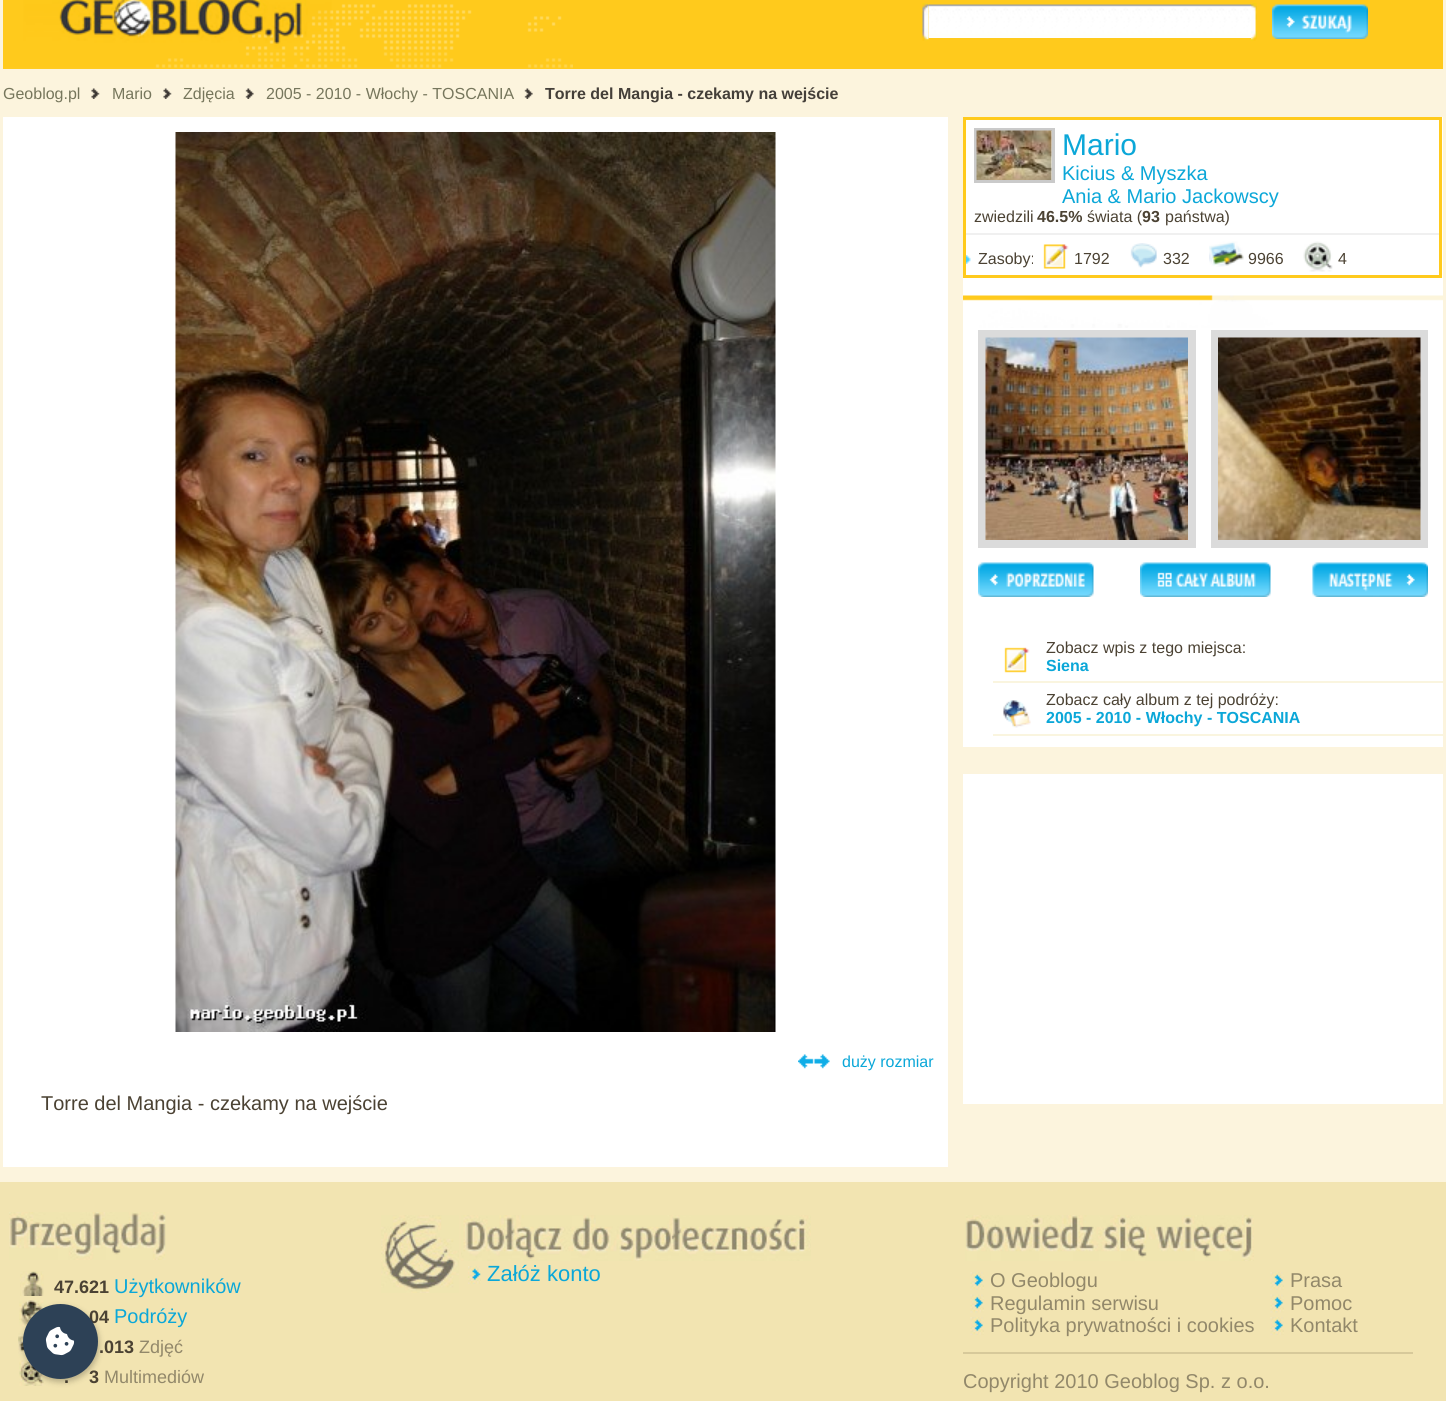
#include <cairo.h>
#include <math.h>
#include <stddef.h>

static cairo_t *ctx;

static void use_color(int r, int g, int b) {
    cairo_set_source_rgb(ctx, r / 255.0, g / 255.0, b / 255.0);
}

static void round_rect(double x, double y, double w, double h, double r) {
    cairo_new_sub_path(ctx);
    cairo_arc(ctx, x + w - r, y + h - r, r, 0, M_PI / 2);
    cairo_arc(ctx, x + r, y + h - r, r, M_PI / 2, M_PI);
    cairo_arc(ctx, x + r, y + r, r, M_PI, 1.5 * M_PI);
    cairo_arc(ctx, x + w - r, y + r, r, 1.5 * M_PI, 2 * M_PI);
    cairo_close_path(ctx);
}

static void shadow(double x, double y, double w, double h, double r, double blur, double alpha) {
    cairo_push_group_with_content(ctx, CAIRO_CONTENT_ALPHA);
    cairo_set_operator(ctx, CAIRO_OPERATOR_SOURCE);
    for (int i = 15; i >= -15 && fmin(w, h) + blur * i / 3 > 0; i -= 2) {
        double e = blur * i / 6;
        cairo_set_source_rgba(ctx, 0, 0, 0, alpha * erfc((i - 1) / 8.5) / 2);
        round_rect(x - e, y - e, w + 2 * e, h + 2 * e, fmax(0, fmin(r + e + blur * .6, fmin(w, h) / 2 + e)));
        cairo_fill(ctx);
    }
    cairo_pattern_t *soft = cairo_pop_group(ctx);
    cairo_mask(ctx, soft);
    cairo_pattern_destroy(soft);
}

static void picture(const char *path, double x, double y, double w, double h) {
    cairo_surface_t *image = cairo_image_surface_create_from_png(path);
    cairo_save(ctx);
    cairo_set_source_surface(ctx, image, x, y);
    cairo_rectangle(ctx, x, y, w, h);
    cairo_fill(ctx);
    cairo_restore(ctx);
    cairo_surface_destroy(image);
}

int main(void) {
    cairo_surface_t *surface = cairo_image_surface_create(CAIRO_FORMAT_RGB24, 1446, 1401);
    ctx = cairo_create(surface);
    cairo_font_options_t *options = cairo_font_options_create();
    cairo_font_options_set_hint_metrics(options, CAIRO_HINT_METRICS_OFF);
    cairo_font_options_set_hint_style(options, CAIRO_HINT_STYLE_NONE);
    cairo_set_font_options(ctx, options);
    cairo_set_miter_limit(ctx, 4);
    use_color(252, 244, 221);
    cairo_paint(ctx);
    use_color(255, 202, 28);
    cairo_rectangle(ctx, 573, 0, 870, 69);
    cairo_fill(ctx);
    picture("img1.png", 3, 0, 570, 69);
    picture("img2.png", 922, 3, 7, 38);
    use_color(255, 255, 255);
    cairo_rectangle(ctx, 929, 37, 322, 1);
    cairo_fill(ctx);
    picture("img3.png", 928, 3, 323, 35);
    picture("img4.png", 1251, 3, 6, 38);
    picture("img5.png", 1272, 4, 96, 35);
    cairo_select_font_face(ctx, "Liberation Sans", CAIRO_FONT_SLANT_NORMAL, CAIRO_FONT_WEIGHT_NORMAL);
    cairo_set_font_size(ctx, 16);
    use_color(118, 118, 92);
    cairo_move_to(ctx, 3, 99);
    cairo_show_text(ctx, "Geoblog.pl");
    picture("img6.png", 91, 88, 9, 11);
    cairo_move_to(ctx, 112, 99);
    cairo_show_text(ctx, "Mario");
    picture("img6.png", 163, 88, 9, 11);
    cairo_move_to(ctx, 183, 99);
    cairo_show_text(ctx, "Zdjęcia");
    picture("img7.png", 245, 88, 9, 11);
    cairo_move_to(ctx, 266, 99);
    cairo_show_text(ctx, "2005 - 2010 - Włochy - TOSCANIA");
    picture("img8.png", 524, 88, 9, 11);
    cairo_select_font_face(ctx, "Liberation Sans", CAIRO_FONT_SLANT_NORMAL, CAIRO_FONT_WEIGHT_BOLD);
    use_color(68, 63, 57);
    cairo_move_to(ctx, 545, 99);
    cairo_show_text(ctx, "Torre del Mangia - czekamy na wejście");
    use_color(255, 255, 255);
    cairo_rectangle(ctx, 963, 117, 480, 630);
    cairo_fill(ctx);
    cairo_rectangle(ctx, 964.5, 118.5, 476, 158);
    use_color(255, 202, 28);
    cairo_set_line_width(ctx, 3);
    cairo_stroke(ctx);
    use_color(240, 240, 240);
    cairo_rectangle(ctx, 966, 233, 473, 2);
    cairo_fill(ctx);
    cairo_rectangle(ctx, 975.5, 129.5, 78, 52);
    use_color(202, 202, 202);
    cairo_stroke(ctx);
    picture("img9.png", 976, 130, 76, 50);
    cairo_select_font_face(ctx, "Liberation Sans", CAIRO_FONT_SLANT_NORMAL, CAIRO_FONT_WEIGHT_NORMAL);
    cairo_set_font_size(ctx, 30);
    use_color(11, 167, 216);
    cairo_move_to(ctx, 1062, 155);
    cairo_show_text(ctx, "Mario");
    cairo_set_font_size(ctx, 20);
    cairo_move_to(ctx, 1062, 180);
    cairo_show_text(ctx, "Kicius & Myszka");
    cairo_move_to(ctx, 1062, 203);
    cairo_show_text(ctx, "Ania & Mario Jackowscy");
    cairo_set_font_size(ctx, 16);
    use_color(75, 66, 51);
    cairo_move_to(ctx, 974, 222);
    cairo_show_text(ctx, "zwiedzili");
    cairo_select_font_face(ctx, "Liberation Sans", CAIRO_FONT_SLANT_NORMAL, CAIRO_FONT_WEIGHT_BOLD);
    cairo_move_to(ctx, 1037, 222);
    cairo_show_text(ctx, "46.5%");
    cairo_select_font_face(ctx, "Liberation Sans", CAIRO_FONT_SLANT_NORMAL, CAIRO_FONT_WEIGHT_NORMAL);
    cairo_move_to(ctx, 1087, 222);
    cairo_show_text(ctx, "świata (");
    cairo_select_font_face(ctx, "Liberation Sans", CAIRO_FONT_SLANT_NORMAL, CAIRO_FONT_WEIGHT_BOLD);
    cairo_move_to(ctx, 1142, 222);
    cairo_show_text(ctx, "93");
    cairo_select_font_face(ctx, "Liberation Sans", CAIRO_FONT_SLANT_NORMAL, CAIRO_FONT_WEIGHT_NORMAL);
    cairo_move_to(ctx, 1165, 222);
    cairo_show_text(ctx, "państwa)");
    picture("img10.png", 966, 255, 5, 9);
    cairo_move_to(ctx, 978, 264);
    cairo_show_text(ctx, "Zasoby:");
    picture("img11.png", 1043, 244, 26, 25);
    cairo_move_to(ctx, 1074, 264);
    cairo_show_text(ctx, "1792");
    picture("img12.png", 1130, 243, 27, 25);
    cairo_move_to(ctx, 1163, 264);
    cairo_show_text(ctx, "332");
    picture("img13.png", 1209, 241, 35, 26);
    cairo_move_to(ctx, 1248, 264);
    cairo_show_text(ctx, "9966");
    picture("img14.png", 1303, 241, 30, 31);
    cairo_move_to(ctx, 1338, 264);
    cairo_show_text(ctx, "4");
    picture("img15.png", 963, 295, 480, 33);
    cairo_rectangle(ctx, 982, 334, 210, 210);
    use_color(219, 219, 219);
    cairo_set_line_width(ctx, 8);
    cairo_stroke(ctx);
    picture("img16.png", 985, 337, 203, 203);
    cairo_rectangle(ctx, 1215, 334, 209, 210);
    cairo_stroke(ctx);
    picture("img17.png", 1218, 337, 203, 203);
    picture("img18.png", 978, 562, 116, 35);
    picture("img19.png", 1140, 562, 131, 35);
    picture("img20.png", 1312, 562, 116, 35);
    use_color(250, 245, 223);
    cairo_rectangle(ctx, 993, 681, 450, 2);
    cairo_fill(ctx);
    picture("img21.png", 1004, 647, 26, 26);
    use_color(75, 66, 51);
    cairo_move_to(ctx, 1046, 653);
    cairo_show_text(ctx, "Zobacz wpis z tego miejsca:");
    cairo_select_font_face(ctx, "Liberation Sans", CAIRO_FONT_SLANT_NORMAL, CAIRO_FONT_WEIGHT_BOLD);
    use_color(11, 167, 216);
    cairo_move_to(ctx, 1046, 671);
    cairo_show_text(ctx, "Siena");
    use_color(250, 245, 223);
    cairo_rectangle(ctx, 993, 734, 450, 2);
    cairo_fill(ctx);
    picture("img22.png", 1003, 700, 28, 28);
    cairo_select_font_face(ctx, "Liberation Sans", CAIRO_FONT_SLANT_NORMAL, CAIRO_FONT_WEIGHT_NORMAL);
    use_color(75, 66, 51);
    cairo_move_to(ctx, 1046, 705);
    cairo_show_text(ctx, "Zobacz cały album z tej podróży:");
    cairo_select_font_face(ctx, "Liberation Sans", CAIRO_FONT_SLANT_NORMAL, CAIRO_FONT_WEIGHT_BOLD);
    use_color(11, 167, 216);
    cairo_move_to(ctx, 1046, 723);
    cairo_show_text(ctx, "2005 - 2010 - Włochy - TOSCANIA");
    use_color(255, 255, 255);
    cairo_rectangle(ctx, 963, 774, 480, 330);
    cairo_fill(ctx);
    cairo_rectangle(ctx, 3, 117, 945, 1050);
    cairo_fill(ctx);
    picture("img23.png", 175, 132, 601, 900);
    picture("img24.png", 798, 1054, 32, 15);
    cairo_select_font_face(ctx, "Liberation Sans", CAIRO_FONT_SLANT_NORMAL, CAIRO_FONT_WEIGHT_NORMAL);
    use_color(11, 167, 216);
    cairo_move_to(ctx, 842, 1067);
    cairo_show_text(ctx, "duży rozmiar");
    cairo_set_font_size(ctx, 20);
    use_color(75, 66, 51);
    cairo_move_to(ctx, 41, 1110);
    cairo_show_text(ctx, "Torre del Mangia - czekamy na wejście");
    use_color(242, 228, 177);
    cairo_rectangle(ctx, 0, 1182, 1446, 219);
    cairo_fill(ctx);
    picture("img25.png", 381, 1215, 78, 78);
    picture("img26.png", 461, 1215, 350, 46);
    picture("img27.png", 468, 1266, 13, 18);
    cairo_set_font_size(ctx, 22);
    use_color(11, 167, 216);
    cairo_move_to(ctx, 487, 1281);
    cairo_show_text(ctx, "Załóż konto");
    picture("img28.png", 9, 1212, 157, 48);
    picture("img29.png", 20, 1271, 24, 25);
    cairo_select_font_face(ctx, "Liberation Sans", CAIRO_FONT_SLANT_NORMAL, CAIRO_FONT_WEIGHT_BOLD);
    cairo_set_font_size(ctx, 18);
    use_color(75, 66, 51);
    cairo_move_to(ctx, 54, 1293);
    cairo_show_text(ctx, "47.621");
    cairo_select_font_face(ctx, "Liberation Sans", CAIRO_FONT_SLANT_NORMAL, CAIRO_FONT_WEIGHT_NORMAL);
    cairo_set_font_size(ctx, 20);
    use_color(11, 167, 216);
    cairo_move_to(ctx, 114, 1293);
    cairo_show_text(ctx, "Użytkowników");
    picture("img30.png", 19, 1300, 28, 26);
    cairo_select_font_face(ctx, "Liberation Sans", CAIRO_FONT_SLANT_NORMAL, CAIRO_FONT_WEIGHT_BOLD);
    cairo_set_font_size(ctx, 18);
    use_color(75, 66, 51);
    cairo_move_to(ctx, 89, 1323);
    cairo_show_text(ctx, "04");
    cairo_select_font_face(ctx, "Liberation Sans", CAIRO_FONT_SLANT_NORMAL, CAIRO_FONT_WEIGHT_NORMAL);
    cairo_set_font_size(ctx, 20);
    use_color(11, 167, 216);
    cairo_move_to(ctx, 114, 1323);
    cairo_show_text(ctx, "Podróży");
    picture("img31.png", 18, 1333, 8, 23);
    cairo_select_font_face(ctx, "Liberation Sans", CAIRO_FONT_SLANT_NORMAL, CAIRO_FONT_WEIGHT_BOLD);
    cairo_set_font_size(ctx, 18);
    use_color(75, 66, 51);
    cairo_move_to(ctx, 99, 1353);
    cairo_show_text(ctx, ".013");
    cairo_select_font_face(ctx, "Liberation Sans", CAIRO_FONT_SLANT_NORMAL, CAIRO_FONT_WEIGHT_NORMAL);
    use_color(146, 136, 106);
    cairo_move_to(ctx, 139, 1353);
    cairo_show_text(ctx, "Zdjęć");
    picture("img32.png", 19, 1360, 25, 26);
    cairo_select_font_face(ctx, "Liberation Sans", CAIRO_FONT_SLANT_NORMAL, CAIRO_FONT_WEIGHT_BOLD);
    use_color(75, 66, 51);
    cairo_move_to(ctx, 64, 1383);
    cairo_show_text(ctx, ".");
    cairo_move_to(ctx, 89, 1383);
    cairo_show_text(ctx, "3");
    cairo_select_font_face(ctx, "Liberation Sans", CAIRO_FONT_SLANT_NORMAL, CAIRO_FONT_WEIGHT_NORMAL);
    use_color(146, 136, 106);
    cairo_move_to(ctx, 104, 1383);
    cairo_show_text(ctx, "Multimediów");
    picture("img33.png", 965, 1215, 289, 46);
    use_color(215, 201, 154);
    cairo_rectangle(ctx, 963, 1352, 450, 2);
    cairo_fill(ctx);
    picture("img34.png", 970, 1272, 14, 18);
    cairo_set_font_size(ctx, 20);
    use_color(146, 136, 106);
    cairo_move_to(ctx, 990, 1287);
    cairo_show_text(ctx, "O Geoblogu");
    picture("img35.png", 970, 1294, 14, 19);
    cairo_move_to(ctx, 990, 1310);
    cairo_show_text(ctx, "Regulamin serwisu");
    picture("img34.png", 970, 1317, 14, 18);
    cairo_move_to(ctx, 990, 1332);
    cairo_show_text(ctx, "Polityka prywatności i cookies");
    picture("img34.png", 1270, 1272, 14, 18);
    cairo_move_to(ctx, 1290, 1287);
    cairo_show_text(ctx, "Prasa");
    picture("img35.png", 1270, 1294, 14, 19);
    cairo_move_to(ctx, 1290, 1310);
    cairo_show_text(ctx, "Pomoc");
    picture("img34.png", 1270, 1317, 14, 18);
    cairo_move_to(ctx, 1290, 1332);
    cairo_show_text(ctx, "Kontakt");
    cairo_move_to(ctx, 963, 1388);
    cairo_show_text(ctx, "Copyright 2010 Geoblog Sp. z o.o.");
    use_color(0, 0, 0);
    shadow(24, 1307, 75, 75, 37.5, 3, 0.25);
    use_color(45, 65, 86);
    cairo_arc(ctx, 60.5, 1341.5, 37.5, 0, 2 * M_PI);
    cairo_fill(ctx);
    picture("img36.png", 45, 1326, 30, 30);
    cairo_surface_write_to_png(surface, "result.png");
    cairo_font_options_destroy(options);
    cairo_destroy(ctx);
    cairo_surface_destroy(surface);
    return 0;
}
